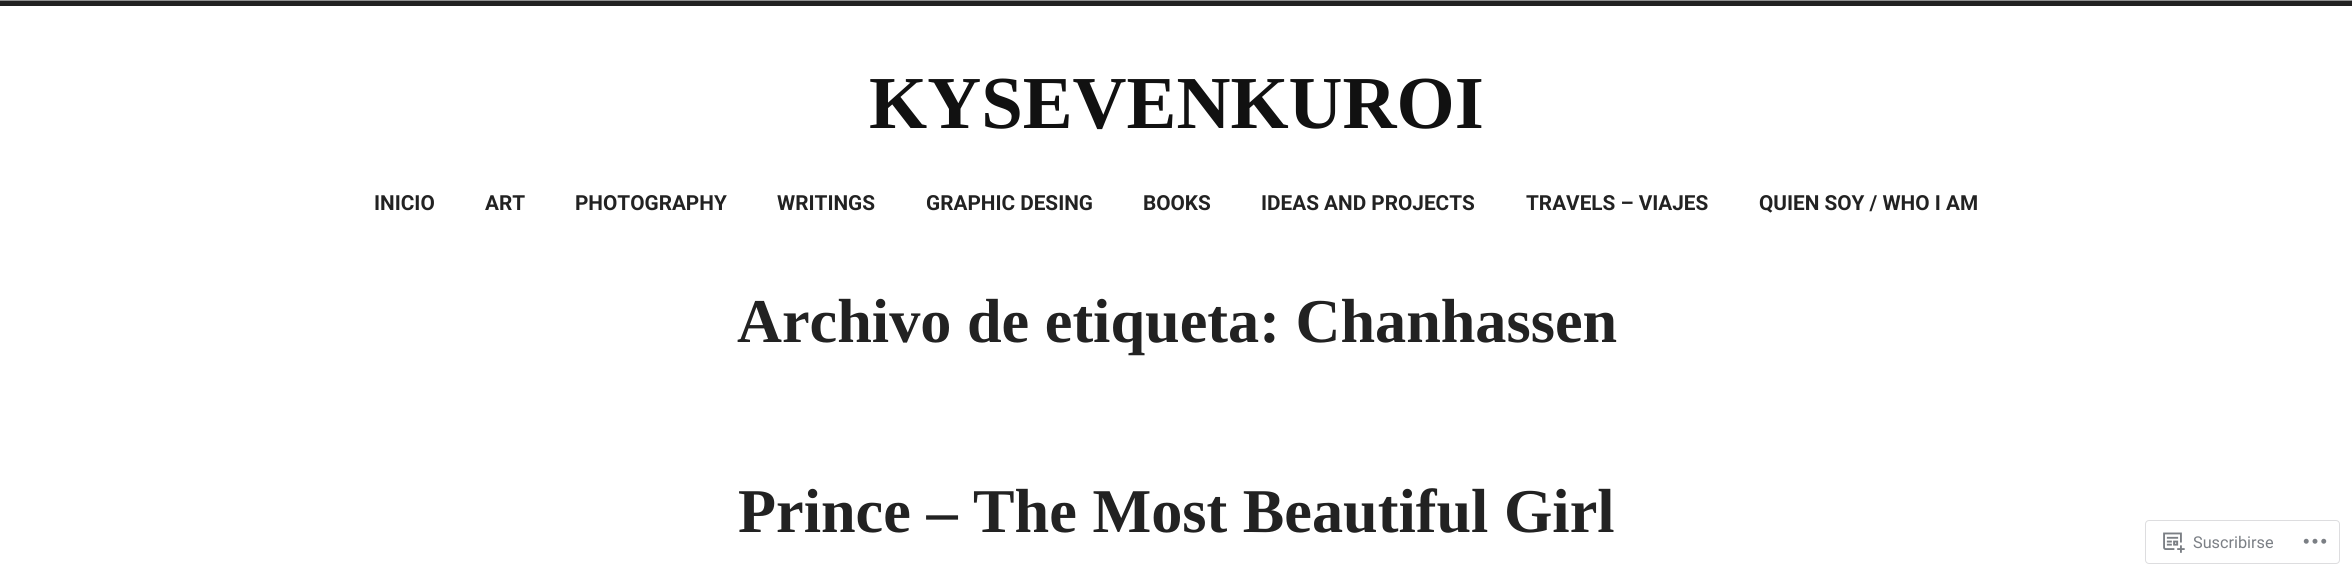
#include <cairo.h>
#include <math.h>
#include <stddef.h>

static cairo_t *ctx;

static void use_color(int r, int g, int b) {
    cairo_set_source_rgb(ctx, r / 255.0, g / 255.0, b / 255.0);
}

static void round_rect(double x, double y, double w, double h, double r) {
    cairo_new_sub_path(ctx);
    cairo_arc(ctx, x + w - r, y + h - r, r, 0, M_PI / 2);
    cairo_arc(ctx, x + r, y + h - r, r, M_PI / 2, M_PI);
    cairo_arc(ctx, x + r, y + r, r, M_PI, 1.5 * M_PI);
    cairo_arc(ctx, x + w - r, y + r, r, 1.5 * M_PI, 2 * M_PI);
    cairo_close_path(ctx);
}

static void picture(const char *path, double x, double y, double w, double h) {
    cairo_surface_t *image = cairo_image_surface_create_from_png(path);
    cairo_save(ctx);
    cairo_set_source_surface(ctx, image, x, y);
    cairo_rectangle(ctx, x, y, w, h);
    cairo_fill(ctx);
    cairo_restore(ctx);
    cairo_surface_destroy(image);
}

int main(void) {
    cairo_surface_t *surface = cairo_image_surface_create(CAIRO_FORMAT_RGB24, 2352, 576);
    ctx = cairo_create(surface);
    cairo_font_options_t *options = cairo_font_options_create();
    cairo_font_options_set_hint_metrics(options, CAIRO_HINT_METRICS_OFF);
    cairo_font_options_set_hint_style(options, CAIRO_HINT_STYLE_NONE);
    cairo_set_font_options(ctx, options);
    cairo_set_miter_limit(ctx, 4);
    use_color(255, 255, 255);
    cairo_paint(ctx);
    use_color(34, 34, 34);
    cairo_rectangle(ctx, 0, 1, 2352, 5);
    cairo_fill(ctx);
    use_color(145, 145, 145);
    cairo_rectangle(ctx, 0, 0, 2352, 1);
    cairo_fill(ctx);
    cairo_select_font_face(ctx, "Liberation Serif", CAIRO_FONT_SLANT_NORMAL, CAIRO_FONT_WEIGHT_BOLD);
    cairo_set_font_size(ctx, 74.75);
    use_color(17, 17, 17);
    cairo_move_to(ctx, 869, 128);
    cairo_show_text(ctx, "KYSEVENKUROI");
    cairo_select_font_face(ctx, "Roboto", CAIRO_FONT_SLANT_NORMAL, CAIRO_FONT_WEIGHT_BOLD);
    cairo_set_font_size(ctx, 20.75);
    use_color(34, 34, 34);
    cairo_move_to(ctx, 374, 210);
    cairo_show_text(ctx, "INICIO");
    cairo_move_to(ctx, 485, 210);
    cairo_show_text(ctx, "ART");
    cairo_move_to(ctx, 575, 210);
    cairo_show_text(ctx, "PHOTOGRAPHY");
    cairo_move_to(ctx, 777, 210);
    cairo_show_text(ctx, "WRITINGS");
    cairo_move_to(ctx, 926, 210);
    cairo_show_text(ctx, "GRAPHIC DESING");
    cairo_move_to(ctx, 1143, 210);
    cairo_show_text(ctx, "BOOKS");
    cairo_move_to(ctx, 1261, 210);
    cairo_show_text(ctx, "IDEAS AND PROJECTS");
    cairo_move_to(ctx, 1526, 210);
    cairo_show_text(ctx, "TRAVELS – VIAJES");
    cairo_move_to(ctx, 1759, 210);
    cairo_show_text(ctx, "QUIEN SOY / WHO I AM");
    cairo_select_font_face(ctx, "Liberation Serif", CAIRO_FONT_SLANT_NORMAL, CAIRO_FONT_WEIGHT_BOLD);
    cairo_set_font_size(ctx, 62.25);
    cairo_move_to(ctx, 737, 342);
    cairo_show_text(ctx, "Archivo de etiqueta: Chanhassen");
    cairo_move_to(ctx, 738, 532);
    cairo_show_text(ctx, "Prince – The Most Beautiful Girl");
    round_rect(2145.5, 520.5, 194, 43, 3.5);
    use_color(221, 221, 223);
    cairo_set_line_width(ctx, 1);
    cairo_stroke(ctx);
    picture("img1.png", 2163, 532, 22, 21);
    cairo_select_font_face(ctx, "Roboto", CAIRO_FONT_SLANT_NORMAL, CAIRO_FONT_WEIGHT_NORMAL);
    cairo_set_font_size(ctx, 16.25);
    use_color(123, 127, 133);
    cairo_move_to(ctx, 2193, 548);
    cairo_show_text(ctx, "Suscribirse");
    picture("img2.png", 2303, 538, 24, 6);
    cairo_surface_write_to_png(surface, "result.png");
    cairo_font_options_destroy(options);
    cairo_destroy(ctx);
    cairo_surface_destroy(surface);
    return 0;
}
